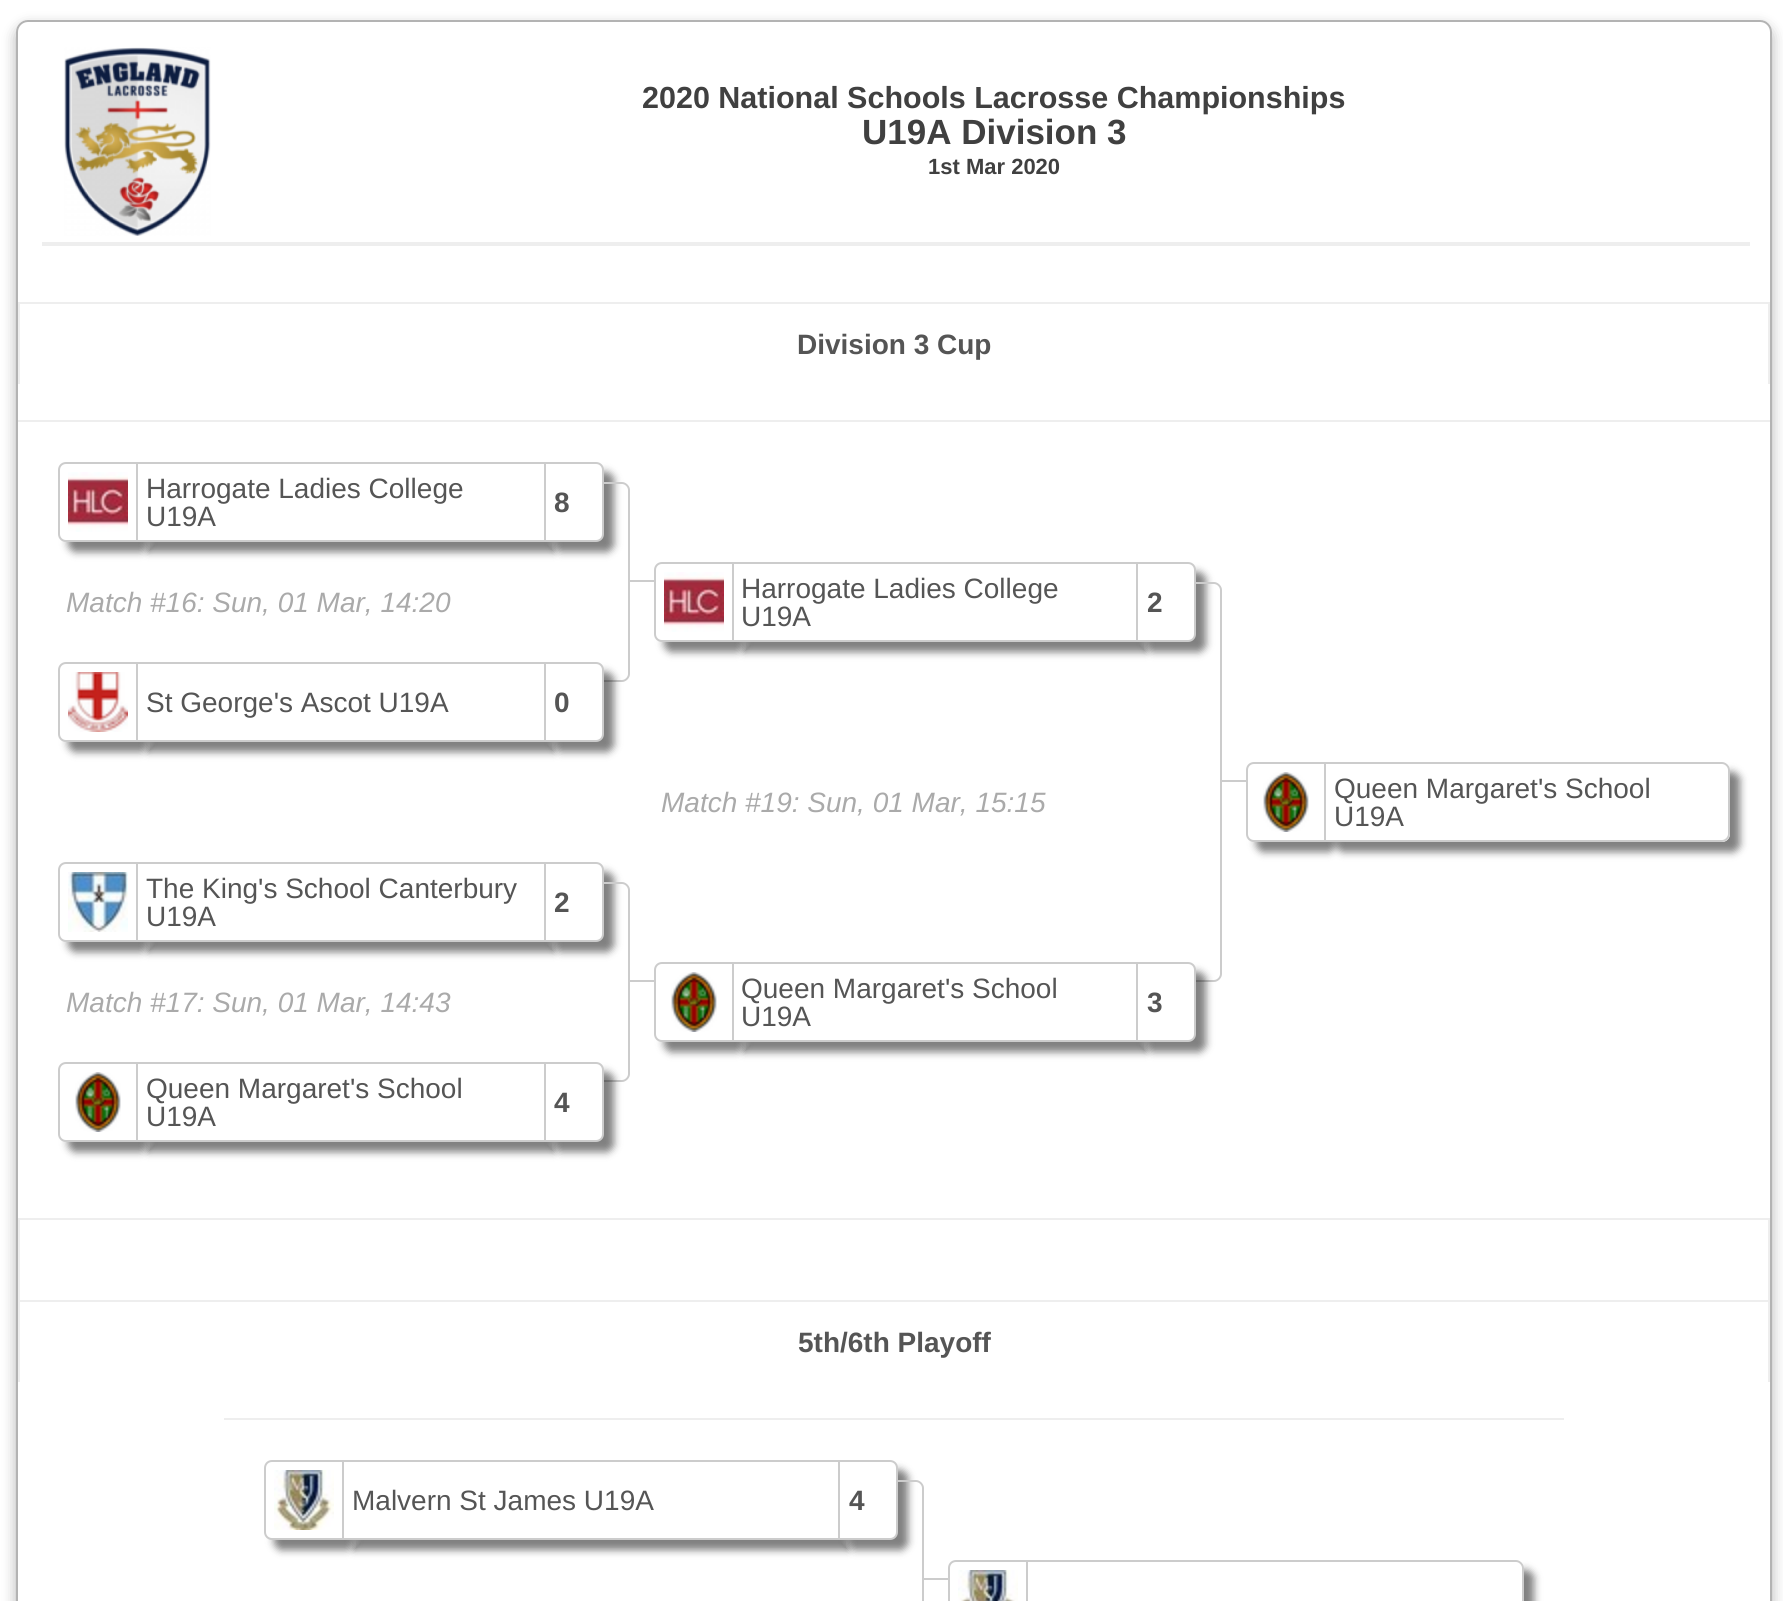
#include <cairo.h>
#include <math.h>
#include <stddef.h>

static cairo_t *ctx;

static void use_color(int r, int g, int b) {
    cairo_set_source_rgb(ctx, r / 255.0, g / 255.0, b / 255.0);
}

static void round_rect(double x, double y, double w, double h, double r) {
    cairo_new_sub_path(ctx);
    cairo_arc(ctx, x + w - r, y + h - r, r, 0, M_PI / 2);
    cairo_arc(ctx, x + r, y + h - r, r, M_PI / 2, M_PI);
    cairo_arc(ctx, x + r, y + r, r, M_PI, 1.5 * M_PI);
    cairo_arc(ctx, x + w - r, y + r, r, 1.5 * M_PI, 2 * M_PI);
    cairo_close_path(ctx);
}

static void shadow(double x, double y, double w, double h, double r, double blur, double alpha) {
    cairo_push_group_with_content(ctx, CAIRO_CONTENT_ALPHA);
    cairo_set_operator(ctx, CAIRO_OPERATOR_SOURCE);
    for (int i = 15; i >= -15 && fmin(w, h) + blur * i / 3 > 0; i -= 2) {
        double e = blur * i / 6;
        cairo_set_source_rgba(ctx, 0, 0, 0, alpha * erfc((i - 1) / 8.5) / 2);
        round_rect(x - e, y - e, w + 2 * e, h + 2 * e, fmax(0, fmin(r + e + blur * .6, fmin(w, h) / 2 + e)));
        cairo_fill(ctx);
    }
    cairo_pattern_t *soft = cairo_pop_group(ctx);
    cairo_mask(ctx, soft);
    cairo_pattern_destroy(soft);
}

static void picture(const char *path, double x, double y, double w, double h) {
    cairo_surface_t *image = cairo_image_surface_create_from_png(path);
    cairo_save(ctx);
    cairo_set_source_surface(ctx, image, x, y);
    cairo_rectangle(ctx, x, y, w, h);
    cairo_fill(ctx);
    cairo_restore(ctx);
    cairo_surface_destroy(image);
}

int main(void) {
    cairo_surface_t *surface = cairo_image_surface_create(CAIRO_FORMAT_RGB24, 1783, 1601);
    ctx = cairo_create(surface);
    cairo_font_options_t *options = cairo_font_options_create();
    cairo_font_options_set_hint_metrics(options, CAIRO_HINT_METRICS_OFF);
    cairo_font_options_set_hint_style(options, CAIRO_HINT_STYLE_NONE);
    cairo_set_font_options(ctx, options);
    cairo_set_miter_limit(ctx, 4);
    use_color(255, 255, 255);
    cairo_paint(ctx);
    cairo_save(ctx);
    cairo_set_fill_rule(ctx, CAIRO_FILL_RULE_EVEN_ODD);
    cairo_new_path(ctx);
    cairo_move_to(ctx, 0, 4);
    cairo_line_to(ctx, 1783, 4);
    cairo_line_to(ctx, 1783, 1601);
    cairo_line_to(ctx, 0, 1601);
    cairo_close_path(ctx);
    cairo_move_to(ctx, 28, 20);
    cairo_line_to(ctx, 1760, 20);
    cairo_curve_to(ctx, 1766.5, 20, 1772, 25.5, 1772, 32);
    cairo_line_to(ctx, 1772, 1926);
    cairo_curve_to(ctx, 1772, 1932.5, 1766.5, 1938, 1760, 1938);
    cairo_line_to(ctx, 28, 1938);
    cairo_curve_to(ctx, 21.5, 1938, 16, 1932.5, 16, 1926);
    cairo_line_to(ctx, 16, 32);
    cairo_curve_to(ctx, 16, 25.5, 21.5, 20, 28, 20);
    cairo_close_path(ctx);
    cairo_clip(ctx);
    use_color(0, 0, 0);
    shadow(16, 26, 1756, 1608, 12, 7, 0.3);
    cairo_restore(ctx);
    round_rect(17, 21, 1754, 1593, 11);
    cairo_set_source_rgba(ctx, 0, 0, 0, 0.3);
    cairo_stroke(ctx);
    use_color(238, 238, 238);
    cairo_rectangle(ctx, 18, 302, 1752, 2);
    cairo_fill(ctx);
    cairo_rectangle(ctx, 42, 242, 1708, 4);
    cairo_fill(ctx);
    picture("img1.png", 64, 47, 147, 189);
    cairo_select_font_face(ctx, "Liberation Sans", CAIRO_FONT_SLANT_NORMAL, CAIRO_FONT_WEIGHT_BOLD);
    cairo_set_font_size(ctx, 30.5);
    use_color(64, 64, 64);
    cairo_move_to(ctx, 642, 108);
    cairo_show_text(ctx, "2020 National Schools Lacrosse Championships");
    cairo_set_font_size(ctx, 35);
    cairo_move_to(ctx, 862, 144);
    cairo_show_text(ctx, "U19A Division 3");
    cairo_set_font_size(ctx, 22);
    cairo_move_to(ctx, 928, 174);
    cairo_show_text(ctx, "1st Mar 2020");
    use_color(238, 238, 238);
    cairo_rectangle(ctx, 1768, 304, 2, 80);
    cairo_fill(ctx);
    cairo_rectangle(ctx, 18, 304, 2, 80);
    cairo_fill(ctx);
    cairo_set_font_size(ctx, 28);
    use_color(85, 85, 85);
    cairo_move_to(ctx, 797, 354);
    cairo_show_text(ctx, "Division 3 Cup");
    use_color(238, 238, 238);
    cairo_rectangle(ctx, 18, 420, 1752, 2);
    cairo_fill(ctx);
    use_color(0, 0, 0);
    shadow(68, 472, 80, 80, 8, 4, 0.5);
    use_color(255, 255, 255);
    cairo_new_path(ctx);
    cairo_move_to(ctx, 66, 463);
    cairo_line_to(ctx, 137, 463);
    cairo_line_to(ctx, 137, 541);
    cairo_line_to(ctx, 66, 541);
    cairo_curve_to(ctx, 62, 541, 59, 538, 59, 534);
    cairo_line_to(ctx, 59, 470);
    cairo_curve_to(ctx, 59, 466, 62, 463, 66, 463);
    cairo_close_path(ctx);
    cairo_fill_preserve(ctx);
    use_color(204, 204, 204);
    cairo_stroke(ctx);
    picture("img2.png", 68, 472, 60, 60);
    use_color(0, 0, 0);
    shadow(148, 472, 406, 80, 0, 4, 0.5);
    use_color(255, 255, 255);
    cairo_rectangle(ctx, 138, 464, 406, 76);
    cairo_fill(ctx);
    use_color(204, 204, 204);
    cairo_rectangle(ctx, 138, 462, 406, 2);
    cairo_fill(ctx);
    cairo_rectangle(ctx, 138, 540, 406, 2);
    cairo_fill(ctx);
    cairo_select_font_face(ctx, "Liberation Sans", CAIRO_FONT_SLANT_NORMAL, CAIRO_FONT_WEIGHT_NORMAL);
    use_color(85, 85, 85);
    cairo_move_to(ctx, 146, 498);
    cairo_show_text(ctx, "Harrogate Ladies College");
    cairo_move_to(ctx, 146, 526);
    cairo_show_text(ctx, "U19A");
    use_color(0, 0, 0);
    shadow(554, 472, 60, 80, 8, 4, 0.5);
    use_color(255, 255, 255);
    cairo_new_path(ctx);
    cairo_move_to(ctx, 545, 463);
    cairo_line_to(ctx, 596, 463);
    cairo_curve_to(ctx, 600, 463, 603, 466, 603, 470);
    cairo_line_to(ctx, 603, 534);
    cairo_curve_to(ctx, 603, 538, 600, 541, 596, 541);
    cairo_line_to(ctx, 545, 541);
    cairo_close_path(ctx);
    cairo_fill_preserve(ctx);
    use_color(204, 204, 204);
    cairo_stroke(ctx);
    cairo_select_font_face(ctx, "Liberation Sans", CAIRO_FONT_SLANT_NORMAL, CAIRO_FONT_WEIGHT_BOLD);
    use_color(85, 85, 85);
    cairo_move_to(ctx, 554, 512);
    cairo_show_text(ctx, "8");
    use_color(204, 204, 204);
    cairo_set_fill_rule(ctx, CAIRO_FILL_RULE_EVEN_ODD);
    cairo_new_path(ctx);
    cairo_move_to(ctx, 604, 482);
    cairo_line_to(ctx, 622, 482);
    cairo_curve_to(ctx, 626, 482, 630, 486, 630, 490);
    cairo_line_to(ctx, 630, 674);
    cairo_curve_to(ctx, 630, 678, 626, 682, 622, 682);
    cairo_line_to(ctx, 604, 682);
    cairo_close_path(ctx);
    cairo_move_to(ctx, 604, 484);
    cairo_line_to(ctx, 622, 484);
    cairo_curve_to(ctx, 625, 484, 628, 487, 628, 490);
    cairo_line_to(ctx, 628, 674);
    cairo_curve_to(ctx, 628, 677, 625, 680, 622, 680);
    cairo_line_to(ctx, 604, 680);
    cairo_close_path(ctx);
    cairo_fill(ctx);
    cairo_rectangle(ctx, 630, 580, 24, 2);
    cairo_fill(ctx);
    use_color(0, 0, 0);
    shadow(664, 572, 80, 80, 8, 4, 0.5);
    use_color(255, 255, 255);
    cairo_new_path(ctx);
    cairo_move_to(ctx, 662, 563);
    cairo_line_to(ctx, 733, 563);
    cairo_line_to(ctx, 733, 641);
    cairo_line_to(ctx, 662, 641);
    cairo_curve_to(ctx, 658, 641, 655, 638, 655, 634);
    cairo_line_to(ctx, 655, 570);
    cairo_curve_to(ctx, 655, 566, 658, 563, 662, 563);
    cairo_close_path(ctx);
    cairo_fill_preserve(ctx);
    use_color(204, 204, 204);
    cairo_stroke(ctx);
    picture("img2.png", 664, 572, 60, 60);
    use_color(0, 0, 0);
    shadow(744, 572, 402, 80, 0, 4, 0.5);
    use_color(255, 255, 255);
    cairo_rectangle(ctx, 734, 564, 402, 76);
    cairo_fill(ctx);
    use_color(204, 204, 204);
    cairo_rectangle(ctx, 734, 562, 402, 2);
    cairo_fill(ctx);
    cairo_rectangle(ctx, 734, 640, 402, 2);
    cairo_fill(ctx);
    cairo_select_font_face(ctx, "Liberation Sans", CAIRO_FONT_SLANT_NORMAL, CAIRO_FONT_WEIGHT_NORMAL);
    use_color(85, 85, 85);
    cairo_move_to(ctx, 741, 598);
    cairo_show_text(ctx, "Harrogate Ladies College");
    cairo_move_to(ctx, 741, 626);
    cairo_show_text(ctx, "U19A");
    use_color(0, 0, 0);
    shadow(1146, 572, 60, 80, 8, 4, 0.5);
    use_color(255, 255, 255);
    cairo_new_path(ctx);
    cairo_move_to(ctx, 1137, 563);
    cairo_line_to(ctx, 1188, 563);
    cairo_curve_to(ctx, 1192, 563, 1195, 566, 1195, 570);
    cairo_line_to(ctx, 1195, 634);
    cairo_curve_to(ctx, 1195, 638, 1192, 641, 1188, 641);
    cairo_line_to(ctx, 1137, 641);
    cairo_close_path(ctx);
    cairo_fill_preserve(ctx);
    use_color(204, 204, 204);
    cairo_stroke(ctx);
    cairo_select_font_face(ctx, "Liberation Sans", CAIRO_FONT_SLANT_NORMAL, CAIRO_FONT_WEIGHT_BOLD);
    use_color(85, 85, 85);
    cairo_move_to(ctx, 1147, 612);
    cairo_show_text(ctx, "2");
    use_color(204, 204, 204);
    cairo_rectangle(ctx, 1222, 780, 24, 2);
    cairo_fill(ctx);
    cairo_select_font_face(ctx, "Liberation Sans", CAIRO_FONT_SLANT_ITALIC, CAIRO_FONT_WEIGHT_NORMAL);
    use_color(170, 170, 170);
    cairo_move_to(ctx, 66, 612);
    cairo_show_text(ctx, "Match #16: Sun, 01 Mar, 14:20");
    use_color(204, 204, 204);
    cairo_rectangle(ctx, 630, 980, 24, 2);
    cairo_fill(ctx);
    cairo_new_path(ctx);
    cairo_move_to(ctx, 1196, 582);
    cairo_line_to(ctx, 1214, 582);
    cairo_curve_to(ctx, 1218, 582, 1222, 586, 1222, 590);
    cairo_line_to(ctx, 1222, 974);
    cairo_curve_to(ctx, 1222, 978, 1218, 982, 1214, 982);
    cairo_line_to(ctx, 1196, 982);
    cairo_close_path(ctx);
    cairo_move_to(ctx, 1196, 584);
    cairo_line_to(ctx, 1214, 584);
    cairo_curve_to(ctx, 1217, 584, 1220, 587, 1220, 590);
    cairo_line_to(ctx, 1220, 974);
    cairo_curve_to(ctx, 1220, 977, 1217, 980, 1214, 980);
    cairo_line_to(ctx, 1196, 980);
    cairo_close_path(ctx);
    cairo_fill(ctx);
    use_color(0, 0, 0);
    shadow(68, 672, 80, 80, 8, 4, 0.5);
    use_color(255, 255, 255);
    cairo_new_path(ctx);
    cairo_move_to(ctx, 66, 663);
    cairo_line_to(ctx, 137, 663);
    cairo_line_to(ctx, 137, 741);
    cairo_line_to(ctx, 66, 741);
    cairo_curve_to(ctx, 62, 741, 59, 738, 59, 734);
    cairo_line_to(ctx, 59, 670);
    cairo_curve_to(ctx, 59, 666, 62, 663, 66, 663);
    cairo_close_path(ctx);
    cairo_fill_preserve(ctx);
    use_color(204, 204, 204);
    cairo_stroke(ctx);
    picture("img3.png", 68, 672, 60, 60);
    use_color(0, 0, 0);
    shadow(148, 672, 406, 80, 0, 4, 0.5);
    use_color(255, 255, 255);
    cairo_rectangle(ctx, 138, 664, 406, 76);
    cairo_fill(ctx);
    use_color(204, 204, 204);
    cairo_rectangle(ctx, 138, 662, 406, 2);
    cairo_fill(ctx);
    cairo_rectangle(ctx, 138, 740, 406, 2);
    cairo_fill(ctx);
    cairo_select_font_face(ctx, "Liberation Sans", CAIRO_FONT_SLANT_NORMAL, CAIRO_FONT_WEIGHT_NORMAL);
    use_color(85, 85, 85);
    cairo_move_to(ctx, 146, 712);
    cairo_show_text(ctx, "St George's Ascot U19A");
    use_color(0, 0, 0);
    shadow(554, 672, 60, 80, 8, 4, 0.5);
    use_color(255, 255, 255);
    cairo_new_path(ctx);
    cairo_move_to(ctx, 545, 663);
    cairo_line_to(ctx, 596, 663);
    cairo_curve_to(ctx, 600, 663, 603, 666, 603, 670);
    cairo_line_to(ctx, 603, 734);
    cairo_curve_to(ctx, 603, 738, 600, 741, 596, 741);
    cairo_line_to(ctx, 545, 741);
    cairo_close_path(ctx);
    cairo_fill_preserve(ctx);
    use_color(204, 204, 204);
    cairo_stroke(ctx);
    cairo_select_font_face(ctx, "Liberation Sans", CAIRO_FONT_SLANT_NORMAL, CAIRO_FONT_WEIGHT_BOLD);
    use_color(85, 85, 85);
    cairo_move_to(ctx, 554, 712);
    cairo_show_text(ctx, "0");
    cairo_select_font_face(ctx, "Liberation Sans", CAIRO_FONT_SLANT_ITALIC, CAIRO_FONT_WEIGHT_NORMAL);
    use_color(170, 170, 170);
    cairo_move_to(ctx, 661, 812);
    cairo_show_text(ctx, "Match #19: Sun, 01 Mar, 15:15");
    use_color(0, 0, 0);
    shadow(1256, 772, 80, 80, 8, 4, 0.5);
    use_color(255, 255, 255);
    cairo_new_path(ctx);
    cairo_move_to(ctx, 1254, 763);
    cairo_line_to(ctx, 1325, 763);
    cairo_line_to(ctx, 1325, 841);
    cairo_line_to(ctx, 1254, 841);
    cairo_curve_to(ctx, 1250, 841, 1247, 838, 1247, 834);
    cairo_line_to(ctx, 1247, 770);
    cairo_curve_to(ctx, 1247, 766, 1250, 763, 1254, 763);
    cairo_close_path(ctx);
    cairo_fill_preserve(ctx);
    use_color(204, 204, 204);
    cairo_stroke(ctx);
    picture("img4.png", 1263, 772, 46, 60);
    use_color(0, 0, 0);
    shadow(1336, 772, 404, 80, 8, 4, 0.5);
    use_color(255, 255, 255);
    cairo_new_path(ctx);
    cairo_move_to(ctx, 1326, 762);
    cairo_line_to(ctx, 1722, 762);
    cairo_curve_to(ctx, 1726.5, 762, 1730, 765.5, 1730, 770);
    cairo_line_to(ctx, 1730, 834);
    cairo_curve_to(ctx, 1730, 838.5, 1726.5, 842, 1722, 842);
    cairo_line_to(ctx, 1326, 842);
    cairo_close_path(ctx);
    cairo_fill(ctx);
    use_color(204, 204, 204);
    cairo_new_path(ctx);
    cairo_move_to(ctx, 1326, 762);
    cairo_line_to(ctx, 1722, 762);
    cairo_curve_to(ctx, 1726, 762, 1730, 766, 1730, 770);
    cairo_line_to(ctx, 1730, 834);
    cairo_curve_to(ctx, 1730, 838, 1726, 842, 1722, 842);
    cairo_line_to(ctx, 1326, 842);
    cairo_close_path(ctx);
    cairo_move_to(ctx, 1326, 764);
    cairo_line_to(ctx, 1722, 764);
    cairo_curve_to(ctx, 1725, 764, 1728, 767, 1728, 770);
    cairo_line_to(ctx, 1728, 834);
    cairo_curve_to(ctx, 1728, 837, 1725, 840, 1722, 840);
    cairo_line_to(ctx, 1326, 840);
    cairo_close_path(ctx);
    cairo_fill(ctx);
    cairo_select_font_face(ctx, "Liberation Sans", CAIRO_FONT_SLANT_NORMAL, CAIRO_FONT_WEIGHT_NORMAL);
    use_color(85, 85, 85);
    cairo_move_to(ctx, 1334, 798);
    cairo_show_text(ctx, "Queen Margaret's School");
    cairo_move_to(ctx, 1334, 826);
    cairo_show_text(ctx, "U19A");
    use_color(0, 0, 0);
    shadow(68, 872, 80, 80, 8, 4, 0.5);
    use_color(255, 255, 255);
    cairo_new_path(ctx);
    cairo_move_to(ctx, 66, 863);
    cairo_line_to(ctx, 137, 863);
    cairo_line_to(ctx, 137, 941);
    cairo_line_to(ctx, 66, 941);
    cairo_curve_to(ctx, 62, 941, 59, 938, 59, 934);
    cairo_line_to(ctx, 59, 870);
    cairo_curve_to(ctx, 59, 866, 62, 863, 66, 863);
    cairo_close_path(ctx);
    cairo_fill_preserve(ctx);
    use_color(204, 204, 204);
    cairo_stroke(ctx);
    picture("img5.png", 68, 872, 60, 60);
    use_color(0, 0, 0);
    shadow(148, 872, 406, 80, 0, 4, 0.5);
    use_color(255, 255, 255);
    cairo_rectangle(ctx, 138, 864, 406, 76);
    cairo_fill(ctx);
    use_color(204, 204, 204);
    cairo_rectangle(ctx, 138, 862, 406, 2);
    cairo_fill(ctx);
    cairo_rectangle(ctx, 138, 940, 406, 2);
    cairo_fill(ctx);
    use_color(85, 85, 85);
    cairo_move_to(ctx, 146, 898);
    cairo_show_text(ctx, "The King's School Canterbury");
    cairo_move_to(ctx, 146, 926);
    cairo_show_text(ctx, "U19A");
    use_color(0, 0, 0);
    shadow(554, 872, 60, 80, 8, 4, 0.5);
    use_color(255, 255, 255);
    cairo_new_path(ctx);
    cairo_move_to(ctx, 545, 863);
    cairo_line_to(ctx, 596, 863);
    cairo_curve_to(ctx, 600, 863, 603, 866, 603, 870);
    cairo_line_to(ctx, 603, 934);
    cairo_curve_to(ctx, 603, 938, 600, 941, 596, 941);
    cairo_line_to(ctx, 545, 941);
    cairo_close_path(ctx);
    cairo_fill_preserve(ctx);
    use_color(204, 204, 204);
    cairo_stroke(ctx);
    cairo_select_font_face(ctx, "Liberation Sans", CAIRO_FONT_SLANT_NORMAL, CAIRO_FONT_WEIGHT_BOLD);
    use_color(85, 85, 85);
    cairo_move_to(ctx, 554, 912);
    cairo_show_text(ctx, "2");
    use_color(204, 204, 204);
    cairo_new_path(ctx);
    cairo_move_to(ctx, 604, 882);
    cairo_line_to(ctx, 622, 882);
    cairo_curve_to(ctx, 626, 882, 630, 886, 630, 890);
    cairo_line_to(ctx, 630, 1074);
    cairo_curve_to(ctx, 630, 1078, 626, 1082, 622, 1082);
    cairo_line_to(ctx, 604, 1082);
    cairo_close_path(ctx);
    cairo_move_to(ctx, 604, 884);
    cairo_line_to(ctx, 622, 884);
    cairo_curve_to(ctx, 625, 884, 628, 887, 628, 890);
    cairo_line_to(ctx, 628, 1074);
    cairo_curve_to(ctx, 628, 1077, 625, 1080, 622, 1080);
    cairo_line_to(ctx, 604, 1080);
    cairo_close_path(ctx);
    cairo_fill(ctx);
    use_color(0, 0, 0);
    shadow(664, 972, 80, 80, 8, 4, 0.5);
    use_color(255, 255, 255);
    cairo_new_path(ctx);
    cairo_move_to(ctx, 662, 963);
    cairo_line_to(ctx, 733, 963);
    cairo_line_to(ctx, 733, 1041);
    cairo_line_to(ctx, 662, 1041);
    cairo_curve_to(ctx, 658, 1041, 655, 1038, 655, 1034);
    cairo_line_to(ctx, 655, 970);
    cairo_curve_to(ctx, 655, 966, 658, 963, 662, 963);
    cairo_close_path(ctx);
    cairo_fill_preserve(ctx);
    use_color(204, 204, 204);
    cairo_stroke(ctx);
    picture("img4.png", 671, 972, 46, 60);
    use_color(0, 0, 0);
    shadow(744, 972, 402, 80, 0, 4, 0.5);
    use_color(255, 255, 255);
    cairo_rectangle(ctx, 734, 964, 402, 76);
    cairo_fill(ctx);
    use_color(204, 204, 204);
    cairo_rectangle(ctx, 734, 962, 402, 2);
    cairo_fill(ctx);
    cairo_rectangle(ctx, 734, 1040, 402, 2);
    cairo_fill(ctx);
    cairo_select_font_face(ctx, "Liberation Sans", CAIRO_FONT_SLANT_NORMAL, CAIRO_FONT_WEIGHT_NORMAL);
    use_color(85, 85, 85);
    cairo_move_to(ctx, 741, 998);
    cairo_show_text(ctx, "Queen Margaret's School");
    cairo_move_to(ctx, 741, 1026);
    cairo_show_text(ctx, "U19A");
    use_color(0, 0, 0);
    shadow(1146, 972, 60, 80, 8, 4, 0.5);
    use_color(255, 255, 255);
    cairo_new_path(ctx);
    cairo_move_to(ctx, 1137, 963);
    cairo_line_to(ctx, 1188, 963);
    cairo_curve_to(ctx, 1192, 963, 1195, 966, 1195, 970);
    cairo_line_to(ctx, 1195, 1034);
    cairo_curve_to(ctx, 1195, 1038, 1192, 1041, 1188, 1041);
    cairo_line_to(ctx, 1137, 1041);
    cairo_close_path(ctx);
    cairo_fill_preserve(ctx);
    use_color(204, 204, 204);
    cairo_stroke(ctx);
    cairo_select_font_face(ctx, "Liberation Sans", CAIRO_FONT_SLANT_NORMAL, CAIRO_FONT_WEIGHT_BOLD);
    use_color(85, 85, 85);
    cairo_move_to(ctx, 1147, 1012);
    cairo_show_text(ctx, "3");
    cairo_select_font_face(ctx, "Liberation Sans", CAIRO_FONT_SLANT_ITALIC, CAIRO_FONT_WEIGHT_NORMAL);
    use_color(170, 170, 170);
    cairo_move_to(ctx, 66, 1012);
    cairo_show_text(ctx, "Match #17: Sun, 01 Mar, 14:43");
    use_color(0, 0, 0);
    shadow(68, 1072, 80, 80, 8, 4, 0.5);
    use_color(255, 255, 255);
    cairo_new_path(ctx);
    cairo_move_to(ctx, 66, 1063);
    cairo_line_to(ctx, 137, 1063);
    cairo_line_to(ctx, 137, 1141);
    cairo_line_to(ctx, 66, 1141);
    cairo_curve_to(ctx, 62, 1141, 59, 1138, 59, 1134);
    cairo_line_to(ctx, 59, 1070);
    cairo_curve_to(ctx, 59, 1066, 62, 1063, 66, 1063);
    cairo_close_path(ctx);
    cairo_fill_preserve(ctx);
    use_color(204, 204, 204);
    cairo_stroke(ctx);
    picture("img4.png", 75, 1072, 46, 60);
    use_color(0, 0, 0);
    shadow(148, 1072, 406, 80, 0, 4, 0.5);
    use_color(255, 255, 255);
    cairo_rectangle(ctx, 138, 1064, 406, 76);
    cairo_fill(ctx);
    use_color(204, 204, 204);
    cairo_rectangle(ctx, 138, 1062, 406, 2);
    cairo_fill(ctx);
    cairo_rectangle(ctx, 138, 1140, 406, 2);
    cairo_fill(ctx);
    cairo_select_font_face(ctx, "Liberation Sans", CAIRO_FONT_SLANT_NORMAL, CAIRO_FONT_WEIGHT_NORMAL);
    use_color(85, 85, 85);
    cairo_move_to(ctx, 146, 1098);
    cairo_show_text(ctx, "Queen Margaret's School");
    cairo_move_to(ctx, 146, 1126);
    cairo_show_text(ctx, "U19A");
    use_color(0, 0, 0);
    shadow(554, 1072, 60, 80, 8, 4, 0.5);
    use_color(255, 255, 255);
    cairo_new_path(ctx);
    cairo_move_to(ctx, 545, 1063);
    cairo_line_to(ctx, 596, 1063);
    cairo_curve_to(ctx, 600, 1063, 603, 1066, 603, 1070);
    cairo_line_to(ctx, 603, 1134);
    cairo_curve_to(ctx, 603, 1138, 600, 1141, 596, 1141);
    cairo_line_to(ctx, 545, 1141);
    cairo_close_path(ctx);
    cairo_fill_preserve(ctx);
    use_color(204, 204, 204);
    cairo_stroke(ctx);
    cairo_select_font_face(ctx, "Liberation Sans", CAIRO_FONT_SLANT_NORMAL, CAIRO_FONT_WEIGHT_BOLD);
    use_color(85, 85, 85);
    cairo_move_to(ctx, 554, 1112);
    cairo_show_text(ctx, "4");
    use_color(238, 238, 238);
    cairo_rectangle(ctx, 18, 1218, 1752, 2);
    cairo_fill(ctx);
    cairo_rectangle(ctx, 1768, 1218, 2, 82);
    cairo_fill(ctx);
    cairo_rectangle(ctx, 18, 1218, 2, 82);
    cairo_fill(ctx);
    cairo_rectangle(ctx, 18, 1300, 1752, 2);
    cairo_fill(ctx);
    cairo_rectangle(ctx, 1768, 1300, 2, 82);
    cairo_fill(ctx);
    cairo_rectangle(ctx, 18, 1300, 2, 82);
    cairo_fill(ctx);
    use_color(85, 85, 85);
    cairo_move_to(ctx, 798, 1352);
    cairo_show_text(ctx, "5th/6th Playoff");
    use_color(238, 238, 238);
    cairo_rectangle(ctx, 224, 1418, 1340, 2);
    cairo_fill(ctx);
    use_color(0, 0, 0);
    shadow(274, 1470, 80, 80, 8, 4, 0.5);
    use_color(255, 255, 255);
    cairo_new_path(ctx);
    cairo_move_to(ctx, 272, 1461);
    cairo_line_to(ctx, 343, 1461);
    cairo_line_to(ctx, 343, 1539);
    cairo_line_to(ctx, 272, 1539);
    cairo_curve_to(ctx, 268, 1539, 265, 1536, 265, 1532);
    cairo_line_to(ctx, 265, 1468);
    cairo_curve_to(ctx, 265, 1464, 268, 1461, 272, 1461);
    cairo_close_path(ctx);
    cairo_fill_preserve(ctx);
    use_color(204, 204, 204);
    cairo_stroke(ctx);
    picture("img6.png", 274, 1470, 60, 60);
    use_color(0, 0, 0);
    shadow(354, 1470, 494, 80, 0, 4, 0.5);
    use_color(255, 255, 255);
    cairo_rectangle(ctx, 344, 1462, 494, 76);
    cairo_fill(ctx);
    use_color(204, 204, 204);
    cairo_rectangle(ctx, 344, 1460, 494, 2);
    cairo_fill(ctx);
    cairo_rectangle(ctx, 344, 1538, 494, 2);
    cairo_fill(ctx);
    cairo_select_font_face(ctx, "Liberation Sans", CAIRO_FONT_SLANT_NORMAL, CAIRO_FONT_WEIGHT_NORMAL);
    use_color(85, 85, 85);
    cairo_move_to(ctx, 352, 1510);
    cairo_show_text(ctx, "Malvern St James U19A");
    use_color(0, 0, 0);
    shadow(848, 1470, 60, 80, 8, 4, 0.5);
    use_color(255, 255, 255);
    cairo_new_path(ctx);
    cairo_move_to(ctx, 839, 1461);
    cairo_line_to(ctx, 890, 1461);
    cairo_curve_to(ctx, 894, 1461, 897, 1464, 897, 1468);
    cairo_line_to(ctx, 897, 1532);
    cairo_curve_to(ctx, 897, 1536, 894, 1539, 890, 1539);
    cairo_line_to(ctx, 839, 1539);
    cairo_close_path(ctx);
    cairo_fill_preserve(ctx);
    use_color(204, 204, 204);
    cairo_stroke(ctx);
    cairo_select_font_face(ctx, "Liberation Sans", CAIRO_FONT_SLANT_NORMAL, CAIRO_FONT_WEIGHT_BOLD);
    use_color(85, 85, 85);
    cairo_move_to(ctx, 849, 1510);
    cairo_show_text(ctx, "4");
    use_color(204, 204, 204);
    cairo_new_path(ctx);
    cairo_move_to(ctx, 898, 1480);
    cairo_line_to(ctx, 916, 1480);
    cairo_curve_to(ctx, 920, 1480, 924, 1484, 924, 1488);
    cairo_line_to(ctx, 924, 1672);
    cairo_curve_to(ctx, 924, 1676, 920, 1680, 916, 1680);
    cairo_line_to(ctx, 898, 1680);
    cairo_close_path(ctx);
    cairo_move_to(ctx, 898, 1482);
    cairo_line_to(ctx, 916, 1482);
    cairo_curve_to(ctx, 919, 1482, 922, 1485, 922, 1488);
    cairo_line_to(ctx, 922, 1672);
    cairo_curve_to(ctx, 922, 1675, 919, 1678, 916, 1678);
    cairo_line_to(ctx, 898, 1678);
    cairo_close_path(ctx);
    cairo_fill(ctx);
    cairo_rectangle(ctx, 924, 1578, 24, 2);
    cairo_fill(ctx);
    cairo_new_path(ctx);
    cairo_move_to(ctx, 956, 1561);
    cairo_line_to(ctx, 1027, 1561);
    cairo_line_to(ctx, 1027, 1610);
    cairo_line_to(ctx, 956, 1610);
    cairo_curve_to(ctx, 952, 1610, 949, 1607, 949, 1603);
    cairo_line_to(ctx, 949, 1568);
    cairo_curve_to(ctx, 949, 1564, 952, 1561, 956, 1561);
    cairo_close_path(ctx);
    cairo_stroke(ctx);
    picture("img7.png", 958, 1570, 60, 31);
    use_color(0, 0, 0);
    shadow(1038, 1570, 496, 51, 8, 4, 0.5);
    use_color(255, 255, 255);
    cairo_new_path(ctx);
    cairo_move_to(ctx, 1028, 1560);
    cairo_line_to(ctx, 1516, 1560);
    cairo_curve_to(ctx, 1520.5, 1560, 1524, 1563.5, 1524, 1568);
    cairo_line_to(ctx, 1524, 1601);
    cairo_curve_to(ctx, 1524, 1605.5, 1520.5, 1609, 1516, 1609);
    cairo_line_to(ctx, 1028, 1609);
    cairo_close_path(ctx);
    cairo_fill(ctx);
    use_color(204, 204, 204);
    cairo_new_path(ctx);
    cairo_move_to(ctx, 1028, 1560);
    cairo_line_to(ctx, 1516, 1560);
    cairo_curve_to(ctx, 1520, 1560, 1524, 1564, 1524, 1568);
    cairo_line_to(ctx, 1524, 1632);
    cairo_curve_to(ctx, 1524, 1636, 1520, 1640, 1516, 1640);
    cairo_line_to(ctx, 1028, 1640);
    cairo_close_path(ctx);
    cairo_move_to(ctx, 1028, 1562);
    cairo_line_to(ctx, 1516, 1562);
    cairo_curve_to(ctx, 1519, 1562, 1522, 1565, 1522, 1568);
    cairo_line_to(ctx, 1522, 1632);
    cairo_curve_to(ctx, 1522, 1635, 1519, 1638, 1516, 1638);
    cairo_line_to(ctx, 1028, 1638);
    cairo_close_path(ctx);
    cairo_fill(ctx);
    cairo_surface_write_to_png(surface, "result.png");
    cairo_font_options_destroy(options);
    cairo_destroy(ctx);
    cairo_surface_destroy(surface);
    return 0;
}
